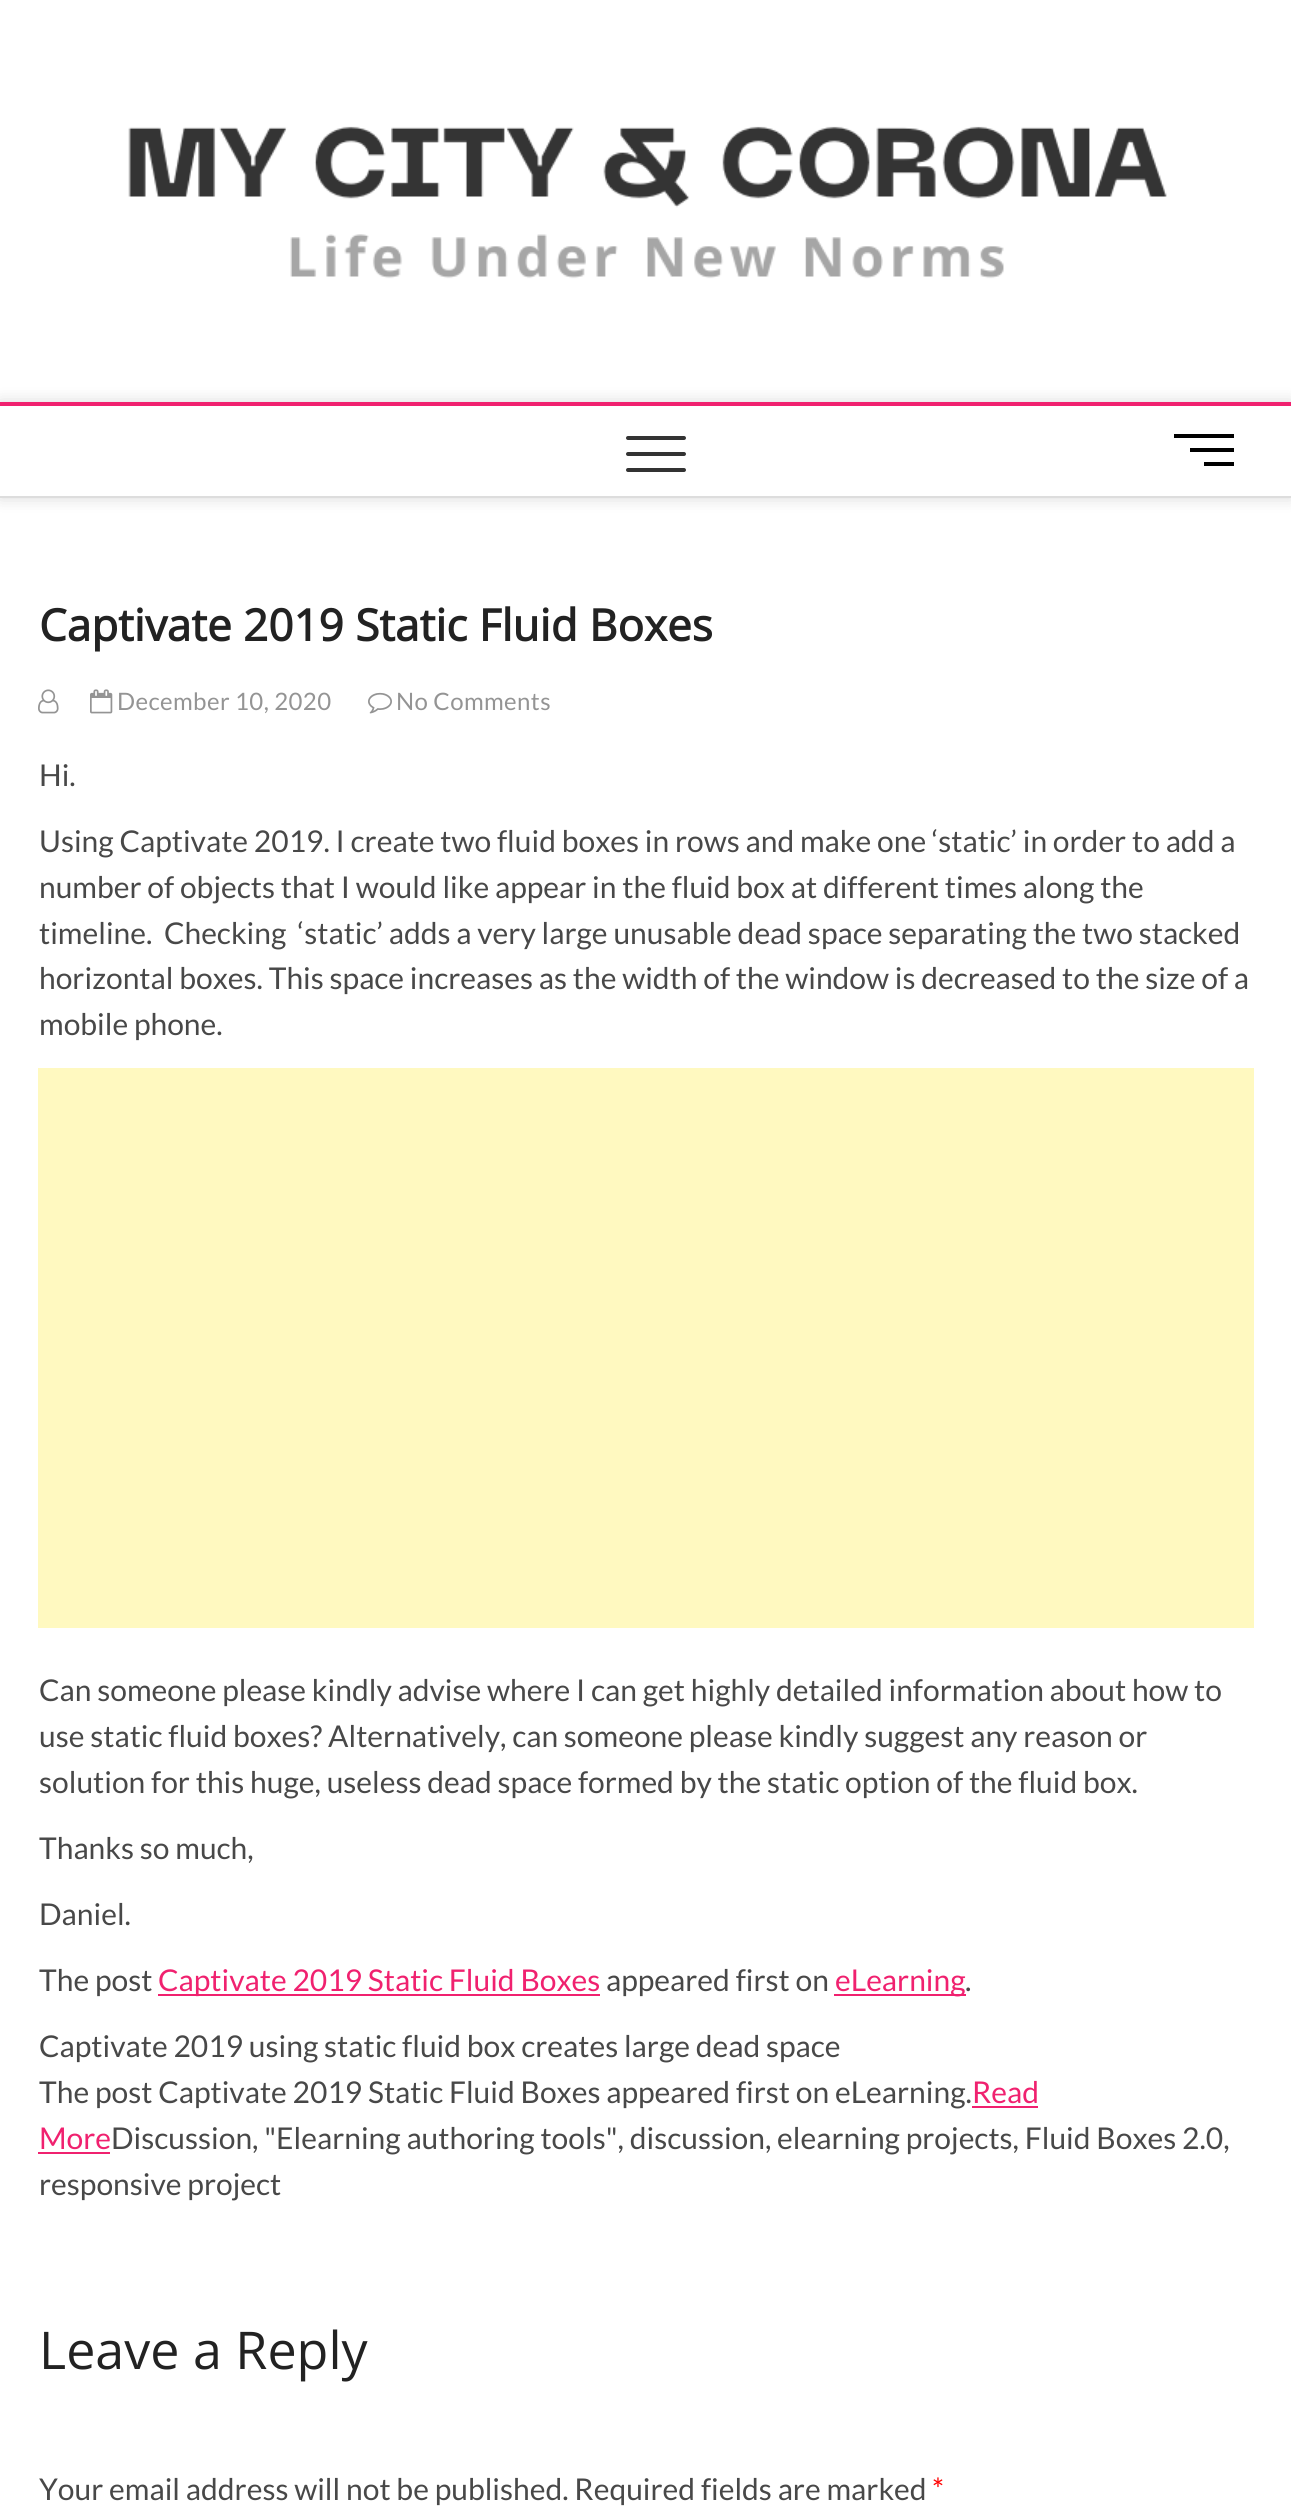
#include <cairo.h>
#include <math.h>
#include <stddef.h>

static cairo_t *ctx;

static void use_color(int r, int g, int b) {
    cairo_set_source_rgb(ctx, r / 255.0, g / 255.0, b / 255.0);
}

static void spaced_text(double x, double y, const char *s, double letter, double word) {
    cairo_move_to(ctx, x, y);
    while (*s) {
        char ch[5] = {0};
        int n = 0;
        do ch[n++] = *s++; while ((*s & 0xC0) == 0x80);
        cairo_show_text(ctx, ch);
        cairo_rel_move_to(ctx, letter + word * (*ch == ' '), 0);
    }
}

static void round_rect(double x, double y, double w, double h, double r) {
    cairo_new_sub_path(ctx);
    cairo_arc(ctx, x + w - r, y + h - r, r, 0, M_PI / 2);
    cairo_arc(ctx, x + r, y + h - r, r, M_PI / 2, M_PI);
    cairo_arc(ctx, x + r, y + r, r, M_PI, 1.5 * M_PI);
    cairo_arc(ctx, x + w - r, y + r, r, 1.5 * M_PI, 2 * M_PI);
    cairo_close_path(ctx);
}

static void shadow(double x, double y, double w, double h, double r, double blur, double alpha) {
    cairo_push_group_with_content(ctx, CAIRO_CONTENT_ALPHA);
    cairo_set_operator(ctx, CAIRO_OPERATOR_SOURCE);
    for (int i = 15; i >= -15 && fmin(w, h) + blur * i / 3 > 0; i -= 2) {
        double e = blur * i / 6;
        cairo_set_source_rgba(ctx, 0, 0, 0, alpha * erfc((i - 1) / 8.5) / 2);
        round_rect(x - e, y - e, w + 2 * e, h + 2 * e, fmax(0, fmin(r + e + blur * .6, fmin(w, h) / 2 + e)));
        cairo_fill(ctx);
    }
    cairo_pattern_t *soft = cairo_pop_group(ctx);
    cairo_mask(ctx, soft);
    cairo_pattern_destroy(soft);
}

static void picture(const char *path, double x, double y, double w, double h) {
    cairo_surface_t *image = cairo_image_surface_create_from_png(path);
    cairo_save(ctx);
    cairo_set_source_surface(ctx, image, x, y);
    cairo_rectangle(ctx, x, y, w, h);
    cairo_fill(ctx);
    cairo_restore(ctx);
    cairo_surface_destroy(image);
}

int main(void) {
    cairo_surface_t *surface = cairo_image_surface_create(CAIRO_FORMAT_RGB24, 1291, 2512);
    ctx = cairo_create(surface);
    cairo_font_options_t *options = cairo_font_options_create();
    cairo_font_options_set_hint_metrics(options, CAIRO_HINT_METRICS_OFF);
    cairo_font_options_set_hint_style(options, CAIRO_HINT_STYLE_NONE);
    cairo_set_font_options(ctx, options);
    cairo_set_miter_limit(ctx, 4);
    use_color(255, 255, 255);
    cairo_paint(ctx);
    picture("img1.png", 128, 126, 1039, 153);
    cairo_save(ctx);
    cairo_set_fill_rule(ctx, CAIRO_FILL_RULE_EVEN_ODD);
    cairo_new_path(ctx);
    cairo_move_to(ctx, 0, 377);
    cairo_line_to(ctx, 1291, 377);
    cairo_line_to(ctx, 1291, 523);
    cairo_line_to(ctx, 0, 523);
    cairo_close_path(ctx);
    cairo_move_to(ctx, 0, 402);
    cairo_line_to(ctx, 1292, 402);
    cairo_line_to(ctx, 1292, 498);
    cairo_line_to(ctx, 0, 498);
    cairo_close_path(ctx);
    cairo_clip(ctx);
    use_color(0, 0, 0);
    shadow(0, 402, 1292, 96, 0, 8, 0.15);
    cairo_restore(ctx);
    use_color(240, 33, 111);
    cairo_rectangle(ctx, 0, 402, 1291, 4);
    cairo_fill(ctx);
    use_color(221, 221, 221);
    cairo_rectangle(ctx, 0, 496, 1291, 2);
    cairo_fill(ctx);
    use_color(51, 51, 51);
    round_rect(626, 452, 60, 4, 2);
    cairo_fill(ctx);
    round_rect(626, 436, 60, 4, 2);
    cairo_fill(ctx);
    round_rect(626, 468, 60, 4, 2);
    cairo_fill(ctx);
    use_color(0, 0, 0);
    cairo_rectangle(ctx, 1190, 448, 44, 4);
    cairo_fill(ctx);
    cairo_rectangle(ctx, 1174, 434, 60, 4);
    cairo_fill(ctx);
    cairo_rectangle(ctx, 1204, 462, 30, 4);
    cairo_fill(ctx);
    cairo_select_font_face(ctx, "Open Sans", CAIRO_FONT_SLANT_NORMAL, CAIRO_FONT_WEIGHT_BOLD);
    cairo_set_font_size(ctx, 44);
    use_color(34, 34, 34);
    cairo_move_to(ctx, 39, 641);
    cairo_show_text(ctx, "Captivate 2019 Static Fluid Boxes");
    picture("img2.png", 38, 689, 21, 25);
    picture("img3.png", 90, 689, 23, 25);
    cairo_select_font_face(ctx, "Lato", CAIRO_FONT_SLANT_NORMAL, CAIRO_FONT_WEIGHT_NORMAL);
    cairo_set_font_size(ctx, 24);
    use_color(148, 148, 148);
    spaced_text(117, 710, "December 10, 2020", 0.4, 0);
    picture("img4.png", 368, 692, 24, 22);
    spaced_text(396, 710, "No Comments", 0.4, 0);
    cairo_set_font_size(ctx, 30);
    use_color(72, 72, 72);
    cairo_move_to(ctx, 39, 786);
    cairo_show_text(ctx, "Hi.");
    cairo_move_to(ctx, 39, 852);
    cairo_show_text(ctx, "Using Captivate 2019. I create two fluid boxes in rows and make one ‘static’ in order to add a");
    cairo_move_to(ctx, 39, 898);
    cairo_show_text(ctx, "number of objects that I would like appear in the fluid box at different times along the");
    cairo_move_to(ctx, 39, 944);
    cairo_show_text(ctx, "timeline.  Checking  ‘static’ adds a very large unusable dead space separating the two stacked");
    cairo_move_to(ctx, 39, 989);
    cairo_show_text(ctx, "horizontal boxes. This space increases as the width of the window is decreased to the size of a");
    cairo_move_to(ctx, 39, 1035);
    cairo_show_text(ctx, "mobile phone.");
    use_color(255, 249, 192);
    cairo_rectangle(ctx, 38, 1068, 1216, 560);
    cairo_fill(ctx);
    use_color(72, 72, 72);
    cairo_move_to(ctx, 39, 1701);
    cairo_show_text(ctx, "Can someone please kindly advise where I can get highly detailed information about how to");
    cairo_move_to(ctx, 39, 1747);
    cairo_show_text(ctx, "use static fluid boxes? Alternatively, can someone please kindly suggest any reason or");
    cairo_move_to(ctx, 39, 1793);
    cairo_show_text(ctx, "solution for this huge, useless dead space formed by the static option of the fluid box.");
    cairo_move_to(ctx, 39, 1859);
    cairo_show_text(ctx, "Thanks so much,");
    cairo_move_to(ctx, 39, 1925);
    cairo_show_text(ctx, "Daniel.");
    cairo_move_to(ctx, 39, 1991);
    cairo_show_text(ctx, "The post");
    use_color(240, 33, 111);
    cairo_rectangle(ctx, 158, 1994, 442, 2);
    cairo_fill(ctx);
    cairo_move_to(ctx, 158, 1991);
    cairo_show_text(ctx, "Captivate 2019 Static Fluid Boxes");
    use_color(72, 72, 72);
    cairo_move_to(ctx, 606, 1991);
    cairo_show_text(ctx, "appeared first on");
    use_color(240, 33, 111);
    cairo_rectangle(ctx, 834, 1994, 132, 2);
    cairo_fill(ctx);
    cairo_move_to(ctx, 835, 1991);
    cairo_show_text(ctx, "eLearning");
    use_color(72, 72, 72);
    cairo_move_to(ctx, 965, 1991);
    cairo_show_text(ctx, ".");
    cairo_move_to(ctx, 39, 2057);
    cairo_show_text(ctx, "Captivate 2019 using static fluid box creates large dead space");
    cairo_move_to(ctx, 39, 2103);
    cairo_show_text(ctx, "The post Captivate 2019 Static Fluid Boxes appeared first on eLearning.");
    use_color(240, 33, 111);
    cairo_move_to(ctx, 972, 2103);
    cairo_show_text(ctx, "Read");
    cairo_rectangle(ctx, 972, 2106, 66, 2);
    cairo_fill(ctx);
    cairo_move_to(ctx, 39, 2149);
    cairo_show_text(ctx, "More");
    cairo_rectangle(ctx, 38, 2152, 72, 2);
    cairo_fill(ctx);
    use_color(72, 72, 72);
    cairo_move_to(ctx, 111, 2149);
    cairo_show_text(ctx, "Discussion, \"Elearning authoring tools\", discussion, elearning projects, Fluid Boxes 2.0,");
    cairo_move_to(ctx, 39, 2195);
    cairo_show_text(ctx, "responsive project");
    cairo_select_font_face(ctx, "Open Sans", CAIRO_FONT_SLANT_NORMAL, CAIRO_FONT_WEIGHT_NORMAL);
    cairo_set_font_size(ctx, 52);
    use_color(34, 34, 34);
    cairo_move_to(ctx, 39, 2369);
    cairo_show_text(ctx, "Leave a Reply");
    cairo_select_font_face(ctx, "Lato", CAIRO_FONT_SLANT_NORMAL, CAIRO_FONT_WEIGHT_NORMAL);
    cairo_set_font_size(ctx, 30);
    use_color(72, 72, 72);
    cairo_move_to(ctx, 39, 2500);
    cairo_show_text(ctx, "Your email address will not be published. Required fields are marked");
    use_color(255, 0, 0);
    cairo_move_to(ctx, 932, 2500);
    cairo_show_text(ctx, "*");
    cairo_surface_write_to_png(surface, "result.png");
    cairo_font_options_destroy(options);
    cairo_destroy(ctx);
    cairo_surface_destroy(surface);
    return 0;
}
